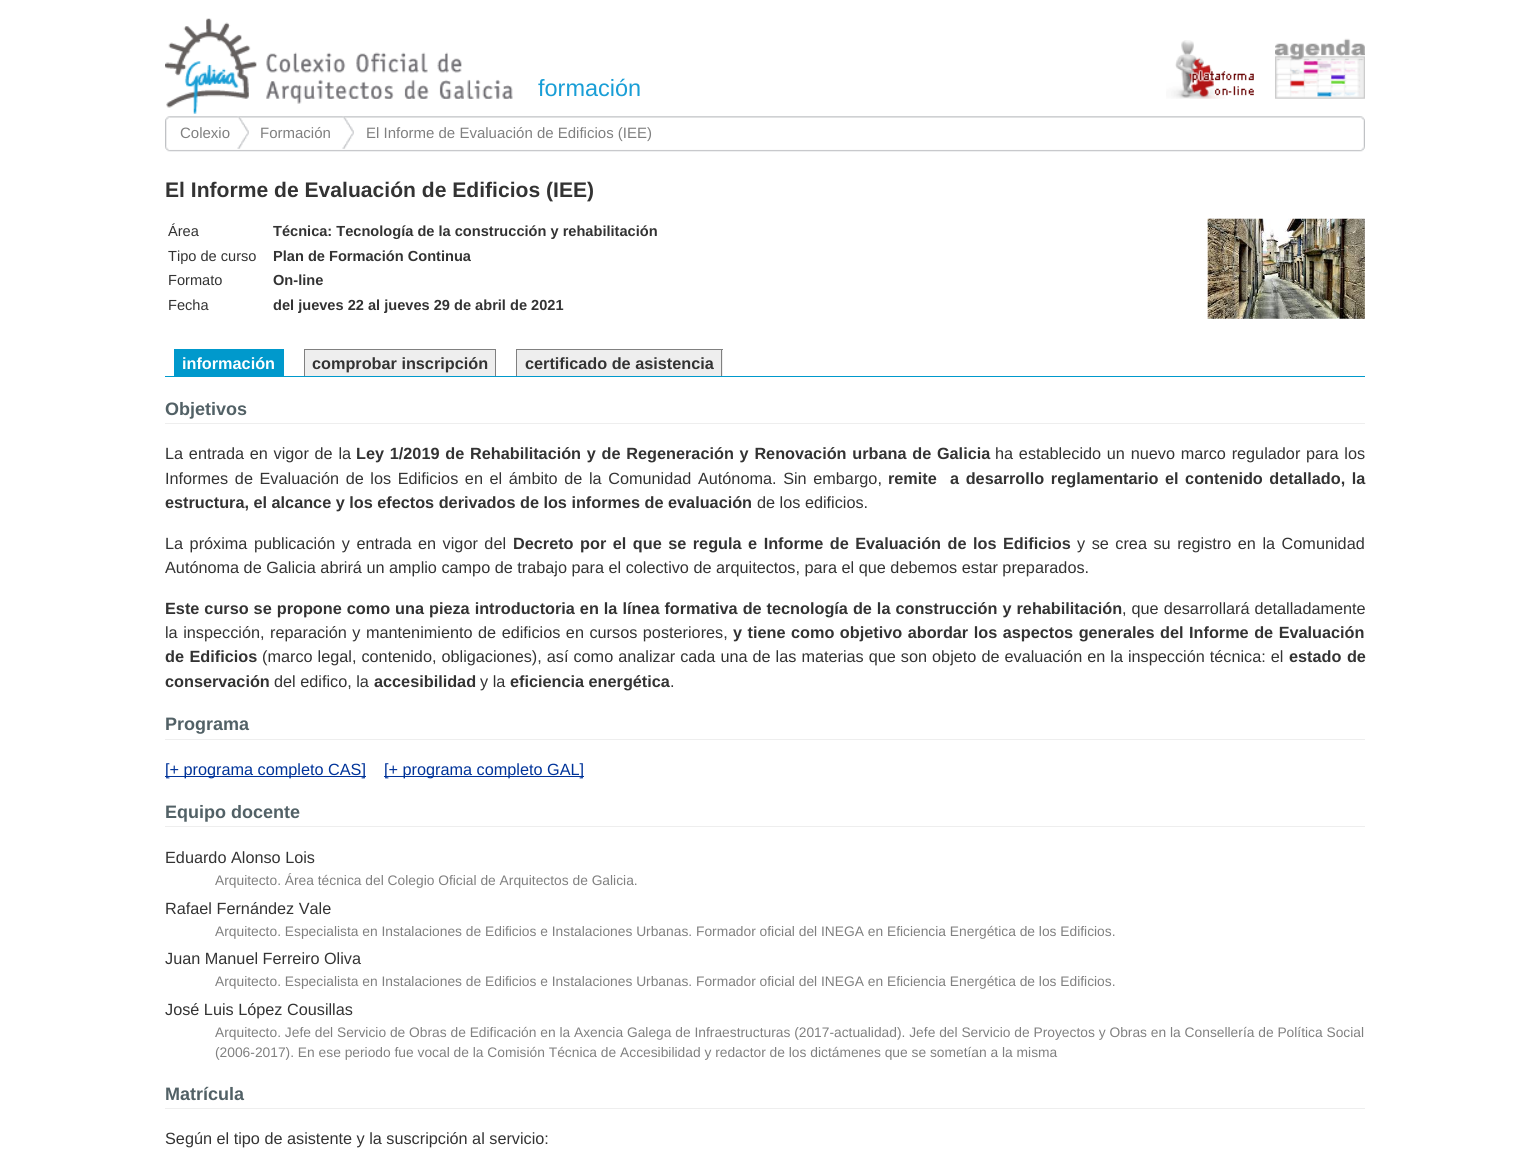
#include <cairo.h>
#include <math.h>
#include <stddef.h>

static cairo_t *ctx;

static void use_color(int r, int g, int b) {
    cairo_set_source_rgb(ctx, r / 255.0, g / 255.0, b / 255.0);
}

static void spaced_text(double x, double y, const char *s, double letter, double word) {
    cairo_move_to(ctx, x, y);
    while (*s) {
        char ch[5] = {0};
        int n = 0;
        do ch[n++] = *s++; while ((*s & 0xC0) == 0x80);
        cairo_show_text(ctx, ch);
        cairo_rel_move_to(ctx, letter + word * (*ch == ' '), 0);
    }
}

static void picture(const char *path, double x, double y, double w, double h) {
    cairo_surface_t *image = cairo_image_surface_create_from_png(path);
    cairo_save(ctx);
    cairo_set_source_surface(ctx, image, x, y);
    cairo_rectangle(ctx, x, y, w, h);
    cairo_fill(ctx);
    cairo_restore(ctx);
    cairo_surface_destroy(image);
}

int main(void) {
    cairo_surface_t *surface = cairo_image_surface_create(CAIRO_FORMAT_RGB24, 1529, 1168);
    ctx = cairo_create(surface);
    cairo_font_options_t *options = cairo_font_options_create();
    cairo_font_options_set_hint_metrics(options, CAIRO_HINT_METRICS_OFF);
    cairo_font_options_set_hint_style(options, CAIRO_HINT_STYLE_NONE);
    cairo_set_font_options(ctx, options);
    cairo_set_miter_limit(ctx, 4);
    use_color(255, 255, 255);
    cairo_paint(ctx);
    picture("img1.png", 165, 18, 348, 96);
    cairo_select_font_face(ctx, "Liberation Sans", CAIRO_FONT_SLANT_NORMAL, CAIRO_FONT_WEIGHT_NORMAL);
    cairo_set_font_size(ctx, 23.5);
    use_color(25, 158, 214);
    cairo_move_to(ctx, 538, 96);
    cairo_show_text(ctx, "formación");
    picture("img2.png", 1166, 40, 88, 59);
    picture("img3.png", 1275, 38, 90, 61);
    picture("img4.png", 165, 116, 1200, 36);
    cairo_set_font_size(ctx, 15);
    use_color(128, 128, 128);
    cairo_move_to(ctx, 180, 138);
    cairo_show_text(ctx, "Colexio");
    picture("img5.png", 237, 116, 12, 33);
    cairo_move_to(ctx, 260, 138);
    cairo_show_text(ctx, "Formación");
    picture("img6.png", 342, 116, 12, 33);
    cairo_move_to(ctx, 366, 138);
    cairo_show_text(ctx, "El Informe de Evaluación de Edificios (IEE)");
    cairo_select_font_face(ctx, "Liberation Sans", CAIRO_FONT_SLANT_NORMAL, CAIRO_FONT_WEIGHT_BOLD);
    cairo_set_font_size(ctx, 21.1);
    use_color(51, 51, 51);
    cairo_move_to(ctx, 165, 197);
    cairo_show_text(ctx, "El Informe de Evaluación de Edificios (IEE)");
    cairo_select_font_face(ctx, "Liberation Sans", CAIRO_FONT_SLANT_NORMAL, CAIRO_FONT_WEIGHT_NORMAL);
    cairo_set_font_size(ctx, 14.6);
    cairo_move_to(ctx, 168, 236);
    cairo_show_text(ctx, "Área");
    cairo_select_font_face(ctx, "Liberation Sans", CAIRO_FONT_SLANT_NORMAL, CAIRO_FONT_WEIGHT_BOLD);
    cairo_move_to(ctx, 273, 236);
    cairo_show_text(ctx, "Técnica: Tecnología de la construcción y rehabilitación");
    cairo_select_font_face(ctx, "Liberation Sans", CAIRO_FONT_SLANT_NORMAL, CAIRO_FONT_WEIGHT_NORMAL);
    cairo_move_to(ctx, 168, 261);
    cairo_show_text(ctx, "Tipo de curso");
    cairo_select_font_face(ctx, "Liberation Sans", CAIRO_FONT_SLANT_NORMAL, CAIRO_FONT_WEIGHT_BOLD);
    cairo_move_to(ctx, 273, 261);
    cairo_show_text(ctx, "Plan de Formación Continua");
    cairo_select_font_face(ctx, "Liberation Sans", CAIRO_FONT_SLANT_NORMAL, CAIRO_FONT_WEIGHT_NORMAL);
    cairo_move_to(ctx, 168, 285);
    cairo_show_text(ctx, "Formato");
    cairo_select_font_face(ctx, "Liberation Sans", CAIRO_FONT_SLANT_NORMAL, CAIRO_FONT_WEIGHT_BOLD);
    cairo_move_to(ctx, 273, 285);
    cairo_show_text(ctx, "On-line");
    cairo_select_font_face(ctx, "Liberation Sans", CAIRO_FONT_SLANT_NORMAL, CAIRO_FONT_WEIGHT_NORMAL);
    cairo_move_to(ctx, 168, 310);
    cairo_show_text(ctx, "Fecha");
    cairo_select_font_face(ctx, "Liberation Sans", CAIRO_FONT_SLANT_NORMAL, CAIRO_FONT_WEIGHT_BOLD);
    cairo_move_to(ctx, 273, 310);
    cairo_show_text(ctx, "del jueves 22 al jueves 29 de abril de 2021");
    picture("img7.png", 1207, 218, 158, 101);
    use_color(0, 153, 204);
    cairo_rectangle(ctx, 165, 376, 1200, 1);
    cairo_fill(ctx);
    cairo_rectangle(ctx, 174, 349, 110, 27);
    cairo_fill(ctx);
    cairo_set_font_size(ctx, 16.25);
    use_color(255, 255, 255);
    cairo_move_to(ctx, 182, 369);
    cairo_show_text(ctx, "información");
    use_color(238, 238, 238);
    cairo_rectangle(ctx, 305, 350, 190, 26);
    cairo_fill(ctx);
    use_color(128, 128, 128);
    cairo_rectangle(ctx, 304, 349, 192, 1);
    cairo_fill(ctx);
    cairo_rectangle(ctx, 495, 349, 1, 27);
    cairo_fill(ctx);
    cairo_rectangle(ctx, 304, 349, 1, 27);
    cairo_fill(ctx);
    use_color(51, 51, 51);
    cairo_move_to(ctx, 312, 369);
    cairo_show_text(ctx, "comprobar inscripción");
    use_color(238, 238, 238);
    cairo_rectangle(ctx, 517, 350, 206, 26);
    cairo_fill(ctx);
    use_color(128, 128, 128);
    cairo_rectangle(ctx, 516, 349, 207, 1);
    cairo_fill(ctx);
    cairo_rectangle(ctx, 721, 349, 1, 27);
    cairo_fill(ctx);
    cairo_rectangle(ctx, 516, 349, 1, 27);
    cairo_fill(ctx);
    use_color(51, 51, 51);
    cairo_move_to(ctx, 525, 369);
    cairo_show_text(ctx, "certificado de asistencia");
    use_color(238, 238, 238);
    cairo_rectangle(ctx, 165, 423, 1200, 1);
    cairo_fill(ctx);
    cairo_set_font_size(ctx, 18);
    use_color(82, 97, 102);
    cairo_move_to(ctx, 165, 415);
    cairo_show_text(ctx, "Objetivos");
    cairo_select_font_face(ctx, "Liberation Sans", CAIRO_FONT_SLANT_NORMAL, CAIRO_FONT_WEIGHT_NORMAL);
    cairo_set_font_size(ctx, 16.25);
    use_color(51, 51, 51);
    spaced_text(165, 459, "La entrada en vigor de la", 0, 1.25);
    cairo_select_font_face(ctx, "Liberation Sans", CAIRO_FONT_SLANT_NORMAL, CAIRO_FONT_WEIGHT_BOLD);
    spaced_text(356, 459, "Ley 1/2019 de Rehabilitación y de Regeneración y Renovación urbana de Galicia", 0, 1.25);
    cairo_select_font_face(ctx, "Liberation Sans", CAIRO_FONT_SLANT_NORMAL, CAIRO_FONT_WEIGHT_NORMAL);
    spaced_text(995, 459, "ha establecido un nuevo marco regulador para los", 0, 1.25);
    spaced_text(165, 484, "Informes de Evaluación de los Edificios en el ámbito de la Comunidad Autónoma. Sin embargo,", 0, 2.1);
    cairo_select_font_face(ctx, "Liberation Sans", CAIRO_FONT_SLANT_NORMAL, CAIRO_FONT_WEIGHT_BOLD);
    spaced_text(888, 484, "remite  a desarrollo reglamentario el contenido detallado, la", 0, 2.1);
    cairo_move_to(ctx, 165, 508);
    cairo_show_text(ctx, "estructura, el alcance y los efectos derivados de los informes de evaluación");
    cairo_select_font_face(ctx, "Liberation Sans", CAIRO_FONT_SLANT_NORMAL, CAIRO_FONT_WEIGHT_NORMAL);
    cairo_move_to(ctx, 757, 508);
    cairo_show_text(ctx, "de los edificios.");
    spaced_text(165, 549, "La próxima publicación y entrada en vigor del", 0, 2);
    cairo_select_font_face(ctx, "Liberation Sans", CAIRO_FONT_SLANT_NORMAL, CAIRO_FONT_WEIGHT_BOLD);
    spaced_text(513, 549, "Decreto por el que se regula e Informe de Evaluación de los Edificios", 0, 2);
    cairo_select_font_face(ctx, "Liberation Sans", CAIRO_FONT_SLANT_NORMAL, CAIRO_FONT_WEIGHT_NORMAL);
    spaced_text(1077, 549, "y se crea su registro en la Comunidad", 0, 2);
    cairo_move_to(ctx, 165, 573);
    cairo_show_text(ctx, "Autónoma de Galicia abrirá un amplio campo de trabajo para el colectivo de arquitectos, para el que debemos estar preparados.");
    cairo_select_font_face(ctx, "Liberation Sans", CAIRO_FONT_SLANT_NORMAL, CAIRO_FONT_WEIGHT_BOLD);
    spaced_text(165, 614, "Este curso se propone como una pieza introductoria en la línea formativa de tecnología de la construcción y rehabilitación", 0, 0.5);
    cairo_select_font_face(ctx, "Liberation Sans", CAIRO_FONT_SLANT_NORMAL, CAIRO_FONT_WEIGHT_NORMAL);
    spaced_text(1122, 614, ", que desarrollará detalladamente", 0, 0.5);
    spaced_text(165, 638, "la inspección, reparación y mantenimiento de edificios en cursos posteriores,", 0, 1);
    cairo_select_font_face(ctx, "Liberation Sans", CAIRO_FONT_SLANT_NORMAL, CAIRO_FONT_WEIGHT_BOLD);
    spaced_text(733, 638, "y tiene como objetivo abordar los aspectos generales del Informe de Evaluación", 0, 1);
    spaced_text(165, 662, "de Edificios", 0, 1);
    cairo_select_font_face(ctx, "Liberation Sans", CAIRO_FONT_SLANT_NORMAL, CAIRO_FONT_WEIGHT_NORMAL);
    spaced_text(262, 662, "(marco legal, contenido, obligaciones), así como analizar cada una de las materias que son objeto de evaluación en la inspección técnica: el", 0, 0.5);
    cairo_select_font_face(ctx, "Liberation Sans", CAIRO_FONT_SLANT_NORMAL, CAIRO_FONT_WEIGHT_BOLD);
    spaced_text(1289, 662, "estado de", 0, 1);
    cairo_move_to(ctx, 165, 687);
    cairo_show_text(ctx, "conservación");
    cairo_select_font_face(ctx, "Liberation Sans", CAIRO_FONT_SLANT_NORMAL, CAIRO_FONT_WEIGHT_NORMAL);
    cairo_move_to(ctx, 274, 687);
    cairo_show_text(ctx, "del edifico, la");
    cairo_select_font_face(ctx, "Liberation Sans", CAIRO_FONT_SLANT_NORMAL, CAIRO_FONT_WEIGHT_BOLD);
    cairo_move_to(ctx, 374, 687);
    cairo_show_text(ctx, "accesibilidad");
    cairo_select_font_face(ctx, "Liberation Sans", CAIRO_FONT_SLANT_NORMAL, CAIRO_FONT_WEIGHT_NORMAL);
    cairo_move_to(ctx, 480, 687);
    cairo_show_text(ctx, "y la");
    cairo_select_font_face(ctx, "Liberation Sans", CAIRO_FONT_SLANT_NORMAL, CAIRO_FONT_WEIGHT_BOLD);
    cairo_move_to(ctx, 510, 687);
    cairo_show_text(ctx, "eficiencia energética");
    cairo_select_font_face(ctx, "Liberation Sans", CAIRO_FONT_SLANT_NORMAL, CAIRO_FONT_WEIGHT_NORMAL);
    cairo_move_to(ctx, 670, 687);
    cairo_show_text(ctx, ".");
    use_color(238, 238, 238);
    cairo_rectangle(ctx, 165, 739, 1200, 1);
    cairo_fill(ctx);
    cairo_select_font_face(ctx, "Liberation Sans", CAIRO_FONT_SLANT_NORMAL, CAIRO_FONT_WEIGHT_BOLD);
    cairo_set_font_size(ctx, 18);
    use_color(82, 97, 102);
    cairo_move_to(ctx, 165, 730);
    cairo_show_text(ctx, "Programa");
    use_color(0, 51, 153);
    cairo_rectangle(ctx, 165, 776, 201, 1);
    cairo_fill(ctx);
    cairo_select_font_face(ctx, "Liberation Sans", CAIRO_FONT_SLANT_NORMAL, CAIRO_FONT_WEIGHT_NORMAL);
    cairo_set_font_size(ctx, 16.25);
    cairo_move_to(ctx, 165, 775);
    cairo_show_text(ctx, "[+ programa completo CAS]");
    cairo_rectangle(ctx, 384, 776, 200, 1);
    cairo_fill(ctx);
    cairo_move_to(ctx, 384, 775);
    cairo_show_text(ctx, "[+ programa completo GAL]");
    use_color(238, 238, 238);
    cairo_rectangle(ctx, 165, 826, 1200, 1);
    cairo_fill(ctx);
    cairo_select_font_face(ctx, "Liberation Sans", CAIRO_FONT_SLANT_NORMAL, CAIRO_FONT_WEIGHT_BOLD);
    cairo_set_font_size(ctx, 18);
    use_color(82, 97, 102);
    cairo_move_to(ctx, 165, 818);
    cairo_show_text(ctx, "Equipo docente");
    cairo_select_font_face(ctx, "Liberation Sans", CAIRO_FONT_SLANT_NORMAL, CAIRO_FONT_WEIGHT_NORMAL);
    cairo_set_font_size(ctx, 16.25);
    use_color(51, 51, 51);
    cairo_move_to(ctx, 165, 863);
    cairo_show_text(ctx, "Eduardo Alonso Lois");
    cairo_set_font_size(ctx, 13.8);
    use_color(128, 128, 128);
    cairo_move_to(ctx, 215, 885);
    cairo_show_text(ctx, "Arquitecto. Área técnica del Colegio Oficial de Arquitectos de Galicia.");
    cairo_set_font_size(ctx, 16.25);
    use_color(51, 51, 51);
    cairo_move_to(ctx, 165, 914);
    cairo_show_text(ctx, "Rafael Fernández Vale");
    cairo_set_font_size(ctx, 13.8);
    use_color(128, 128, 128);
    cairo_move_to(ctx, 215, 936);
    cairo_show_text(ctx, "Arquitecto. Especialista en Instalaciones de Edificios e Instalaciones Urbanas. Formador oficial del INEGA en Eficiencia Energética de los Edificios.");
    cairo_set_font_size(ctx, 16.25);
    use_color(51, 51, 51);
    cairo_move_to(ctx, 165, 964);
    cairo_show_text(ctx, "Juan Manuel Ferreiro Oliva");
    cairo_set_font_size(ctx, 13.8);
    use_color(128, 128, 128);
    cairo_move_to(ctx, 215, 986);
    cairo_show_text(ctx, "Arquitecto. Especialista en Instalaciones de Edificios e Instalaciones Urbanas. Formador oficial del INEGA en Eficiencia Energética de los Edificios.");
    cairo_set_font_size(ctx, 16.25);
    use_color(51, 51, 51);
    cairo_move_to(ctx, 165, 1015);
    cairo_show_text(ctx, "José Luis López Cousillas");
    cairo_set_font_size(ctx, 13.8);
    use_color(128, 128, 128);
    cairo_move_to(ctx, 215, 1037);
    cairo_show_text(ctx, "Arquitecto. Jefe del Servicio de Obras de Edificación en la Axencia Galega de Infraestructuras (2017-actualidad). Jefe del Servicio de Proyectos y Obras en la Consellería de Política Social");
    cairo_move_to(ctx, 215, 1057);
    cairo_show_text(ctx, "(2006-2017). En ese periodo fue vocal de la Comisión Técnica de Accesibilidad y redactor de los dictámenes que se sometían a la misma");
    use_color(238, 238, 238);
    cairo_rectangle(ctx, 165, 1108, 1200, 1);
    cairo_fill(ctx);
    cairo_select_font_face(ctx, "Liberation Sans", CAIRO_FONT_SLANT_NORMAL, CAIRO_FONT_WEIGHT_BOLD);
    cairo_set_font_size(ctx, 18);
    use_color(82, 97, 102);
    cairo_move_to(ctx, 165, 1100);
    cairo_show_text(ctx, "Matrícula");
    cairo_select_font_face(ctx, "Liberation Sans", CAIRO_FONT_SLANT_NORMAL, CAIRO_FONT_WEIGHT_NORMAL);
    cairo_set_font_size(ctx, 16.25);
    use_color(51, 51, 51);
    cairo_move_to(ctx, 165, 1144);
    cairo_show_text(ctx, "Según el tipo de asistente y la suscripción al servicio:");
    cairo_surface_write_to_png(surface, "result.png");
    cairo_font_options_destroy(options);
    cairo_destroy(ctx);
    cairo_surface_destroy(surface);
    return 0;
}
